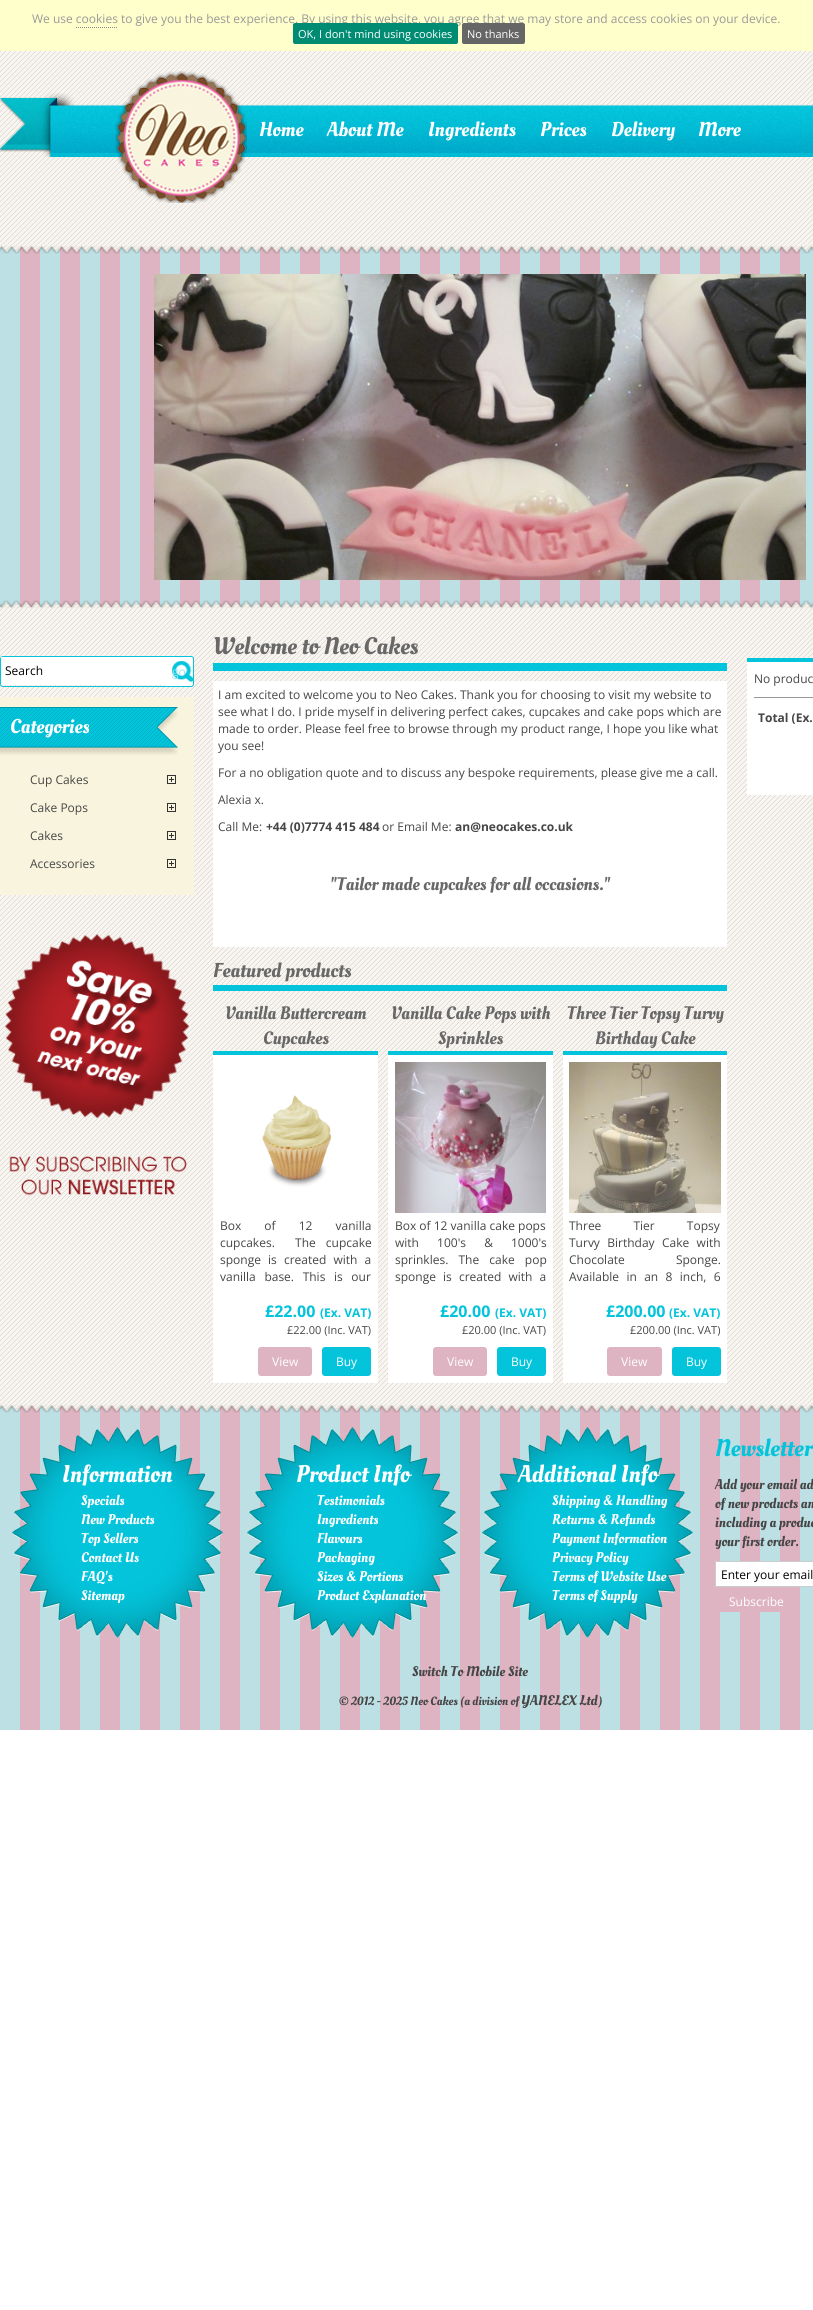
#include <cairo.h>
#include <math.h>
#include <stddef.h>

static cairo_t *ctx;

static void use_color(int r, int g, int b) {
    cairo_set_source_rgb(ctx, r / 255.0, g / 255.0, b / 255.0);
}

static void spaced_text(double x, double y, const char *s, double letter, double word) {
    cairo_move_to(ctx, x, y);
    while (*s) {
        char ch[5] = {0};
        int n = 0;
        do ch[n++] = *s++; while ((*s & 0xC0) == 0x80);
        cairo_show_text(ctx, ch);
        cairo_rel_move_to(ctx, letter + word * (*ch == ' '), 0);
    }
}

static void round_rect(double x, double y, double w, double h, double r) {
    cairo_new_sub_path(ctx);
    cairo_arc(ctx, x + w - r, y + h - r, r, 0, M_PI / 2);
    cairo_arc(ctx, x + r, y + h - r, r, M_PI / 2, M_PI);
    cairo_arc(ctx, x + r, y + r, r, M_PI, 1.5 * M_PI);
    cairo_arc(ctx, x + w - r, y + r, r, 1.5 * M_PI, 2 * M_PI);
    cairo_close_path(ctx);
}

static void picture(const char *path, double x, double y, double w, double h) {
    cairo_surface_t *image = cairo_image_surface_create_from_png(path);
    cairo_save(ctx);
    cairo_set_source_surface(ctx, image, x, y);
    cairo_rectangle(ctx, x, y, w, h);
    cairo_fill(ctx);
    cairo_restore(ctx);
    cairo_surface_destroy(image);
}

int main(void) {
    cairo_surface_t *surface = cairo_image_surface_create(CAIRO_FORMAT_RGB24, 813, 2310);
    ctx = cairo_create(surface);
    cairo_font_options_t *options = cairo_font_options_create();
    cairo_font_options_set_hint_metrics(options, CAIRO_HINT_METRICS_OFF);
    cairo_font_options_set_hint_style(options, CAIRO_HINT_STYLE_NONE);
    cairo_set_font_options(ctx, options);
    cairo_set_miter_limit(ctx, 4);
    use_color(255, 255, 255);
    cairo_paint(ctx);
    use_color(255, 255, 204);
    cairo_rectangle(ctx, 0, 0, 813, 51);
    cairo_fill(ctx);
    cairo_select_font_face(ctx, "Open Sans", CAIRO_FONT_SLANT_NORMAL, CAIRO_FONT_WEIGHT_NORMAL);
    cairo_set_font_size(ctx, 12);
    use_color(153, 153, 153);
    cairo_move_to(ctx, 32, 23);
    cairo_show_text(ctx, "We use cookies to give you the best experience. By using this website, you agree that we may store and access cookies on your device.");
    cairo_new_path(ctx);
    cairo_move_to(ctx, 76, 27.5);
    cairo_line_to(ctx, 118, 27.5);
    use_color(136, 136, 136);
    cairo_set_line_width(ctx, 1);
    cairo_set_dash(ctx, (double[]){1, 1}, 2, 0);
    cairo_stroke(ctx);
    use_color(0, 140, 115);
    round_rect(293, 23, 165, 21, 2);
    cairo_fill(ctx);
    cairo_set_font_size(ctx, 11);
    use_color(255, 255, 255);
    cairo_move_to(ctx, 298, 38);
    cairo_show_text(ctx, "OK, I don't mind using cookies");
    use_color(102, 102, 102);
    round_rect(462, 23, 63, 21, 2);
    cairo_fill(ctx);
    use_color(255, 255, 255);
    cairo_move_to(ctx, 467, 38);
    cairo_show_text(ctx, "No thanks");
    picture("img1.png", 0, 51, 813, 193);
    picture("img3.png", 0, 93, 813, 64);
    picture("img2.png", 115, 71, 132, 132);
    cairo_select_font_face(ctx, "Oleo Script", CAIRO_FONT_SLANT_NORMAL, CAIRO_FONT_WEIGHT_NORMAL);
    cairo_set_font_size(ctx, 20);
    cairo_move_to(ctx, 259, 136);
    cairo_show_text(ctx, "Home");
    cairo_move_to(ctx, 327, 136);
    cairo_show_text(ctx, "About Me");
    cairo_move_to(ctx, 428, 136);
    cairo_show_text(ctx, "Ingredients");
    cairo_move_to(ctx, 540, 136);
    cairo_show_text(ctx, "Prices");
    cairo_move_to(ctx, 611, 136);
    cairo_show_text(ctx, "Delivery");
    cairo_move_to(ctx, 698, 136);
    cairo_show_text(ctx, "More");
    picture("img4.png", 0, 245, 813, 364);
    picture("img5.png", 0, 244, 813, 10);
    picture("img6.png", 0, 600, 813, 10);
    picture("img7.png", 154, 274, 652, 306);
    picture("img8.png", 0, 610, 813, 793);
    round_rect(0.5, 656.5, 193, 30, 2.5);
    use_color(3, 196, 219);
    cairo_set_dash(ctx, NULL, 0, 0);
    cairo_stroke(ctx);
    use_color(255, 255, 255);
    cairo_rectangle(ctx, 1, 657, 163, 28);
    cairo_fill(ctx);
    cairo_select_font_face(ctx, "Open Sans", CAIRO_FONT_SLANT_NORMAL, CAIRO_FONT_WEIGHT_NORMAL);
    cairo_set_font_size(ctx, 12);
    use_color(0, 0, 0);
    cairo_move_to(ctx, 5, 675);
    cairo_show_text(ctx, "Search");
    use_color(255, 255, 255);
    round_rect(164, 657, 29, 29, 3);
    cairo_fill(ctx);
    picture("img9.png", 172, 661, 21, 21);
    use_color(151, 231, 240);
    cairo_move_to(ctx, 172, 676);
    cairo_show_text(ctx, "go");
    use_color(249, 244, 221);
    cairo_rectangle(ctx, 0, 697, 194, 198);
    cairo_fill(ctx);
    picture("img10.png", 0, 707, 178, 48);
    cairo_select_font_face(ctx, "Oleo Script", CAIRO_FONT_SLANT_NORMAL, CAIRO_FONT_WEIGHT_NORMAL);
    cairo_set_font_size(ctx, 20);
    use_color(255, 255, 255);
    cairo_move_to(ctx, 10, 733);
    cairo_show_text(ctx, "Categories");
    cairo_select_font_face(ctx, "Open Sans", CAIRO_FONT_SLANT_NORMAL, CAIRO_FONT_WEIGHT_NORMAL);
    cairo_set_font_size(ctx, 12);
    use_color(70, 70, 70);
    cairo_move_to(ctx, 30, 784);
    cairo_show_text(ctx, "Cup Cakes");
    picture("img11.png", 167, 775, 9, 9);
    cairo_move_to(ctx, 30, 812);
    cairo_show_text(ctx, "Cake Pops");
    picture("img11.png", 167, 803, 9, 9);
    cairo_move_to(ctx, 30, 840);
    cairo_show_text(ctx, "Cakes");
    picture("img11.png", 167, 831, 9, 9);
    cairo_move_to(ctx, 30, 868);
    cairo_show_text(ctx, "Accessories");
    picture("img11.png", 167, 859, 9, 9);
    picture("img12.png", 5, 934, 184, 262);
    use_color(3, 196, 219);
    cairo_rectangle(ctx, 213, 663, 514, 8);
    cairo_fill(ctx);
    cairo_select_font_face(ctx, "Oleo Script", CAIRO_FONT_SLANT_NORMAL, CAIRO_FONT_WEIGHT_NORMAL);
    cairo_set_font_size(ctx, 24);
    use_color(104, 104, 104);
    cairo_move_to(ctx, 213, 654);
    cairo_show_text(ctx, "Welcome to Neo Cakes");
    use_color(255, 255, 255);
    cairo_rectangle(ctx, 213, 681, 514, 266);
    cairo_fill(ctx);
    cairo_select_font_face(ctx, "Open Sans", CAIRO_FONT_SLANT_NORMAL, CAIRO_FONT_WEIGHT_NORMAL);
    cairo_set_font_size(ctx, 12);
    use_color(70, 70, 70);
    cairo_move_to(ctx, 218, 699);
    cairo_show_text(ctx, "I am excited to welcome you to Neo Cakes. Thank you for choosing to visit my website to");
    cairo_move_to(ctx, 218, 716);
    cairo_show_text(ctx, "see what I do. I pride myself in delivering perfect cakes, cupcakes and cake pops which are");
    cairo_move_to(ctx, 218, 733);
    cairo_show_text(ctx, "made to order. Please feel free to browse through my product range, I hope you like what");
    cairo_move_to(ctx, 218, 750);
    cairo_show_text(ctx, "you see!");
    cairo_move_to(ctx, 218, 777);
    cairo_show_text(ctx, "For a no obligation quote and to discuss any bespoke requirements, please give me a call.");
    cairo_move_to(ctx, 218, 804);
    cairo_show_text(ctx, "Alexia x.");
    cairo_move_to(ctx, 218, 831);
    cairo_show_text(ctx, "Call Me:");
    cairo_select_font_face(ctx, "Open Sans", CAIRO_FONT_SLANT_NORMAL, CAIRO_FONT_WEIGHT_BOLD);
    cairo_move_to(ctx, 266, 831);
    cairo_show_text(ctx, "+44 (0)7774 415 484");
    cairo_select_font_face(ctx, "Open Sans", CAIRO_FONT_SLANT_NORMAL, CAIRO_FONT_WEIGHT_NORMAL);
    cairo_move_to(ctx, 382, 831);
    cairo_show_text(ctx, "or Email Me:");
    cairo_select_font_face(ctx, "Open Sans", CAIRO_FONT_SLANT_NORMAL, CAIRO_FONT_WEIGHT_BOLD);
    cairo_move_to(ctx, 455, 831);
    cairo_show_text(ctx, "an@neocakes.co.uk");
    cairo_select_font_face(ctx, "Oleo Script", CAIRO_FONT_SLANT_NORMAL, CAIRO_FONT_WEIGHT_NORMAL);
    cairo_set_font_size(ctx, 18);
    use_color(104, 104, 104);
    cairo_move_to(ctx, 330, 890);
    cairo_show_text(ctx, "\"Tailor made cupcakes for all occasions.\"");
    use_color(3, 196, 219);
    cairo_rectangle(ctx, 213, 985, 514, 6);
    cairo_fill(ctx);
    cairo_set_font_size(ctx, 20);
    use_color(104, 104, 104);
    cairo_move_to(ctx, 213, 977);
    cairo_show_text(ctx, "Featured products");
    use_color(3, 196, 219);
    cairo_rectangle(ctx, 213, 1051, 165, 4);
    cairo_fill(ctx);
    cairo_set_font_size(ctx, 18);
    use_color(104, 104, 104);
    cairo_move_to(ctx, 225, 1019);
    cairo_show_text(ctx, "Vanilla Buttercream");
    cairo_move_to(ctx, 263, 1044);
    cairo_show_text(ctx, "Cupcakes");
    use_color(255, 255, 255);
    cairo_rectangle(ctx, 213, 1055, 165, 328);
    cairo_fill(ctx);
    picture("img13.png", 262, 1095, 70, 92);
    cairo_select_font_face(ctx, "Open Sans", CAIRO_FONT_SLANT_NORMAL, CAIRO_FONT_WEIGHT_NORMAL);
    cairo_set_font_size(ctx, 12);
    use_color(70, 70, 70);
    spaced_text(220, 1230, "Box of 12 vanilla", 0, 20);
    spaced_text(220, 1247, "cupcakes.  The cupcake", 0, 7);
    spaced_text(220, 1264, "sponge is created with a", 0, 4);
    spaced_text(220, 1281, "vanilla base. This is our", 0, 5.5);
    cairo_select_font_face(ctx, "Open Sans", CAIRO_FONT_SLANT_NORMAL, CAIRO_FONT_WEIGHT_BOLD);
    cairo_set_font_size(ctx, 16);
    use_color(3, 196, 219);
    cairo_move_to(ctx, 265, 1317);
    cairo_show_text(ctx, "£22.00");
    cairo_set_font_size(ctx, 12);
    cairo_move_to(ctx, 320, 1317);
    cairo_show_text(ctx, "(Ex. VAT)");
    cairo_select_font_face(ctx, "Open Sans", CAIRO_FONT_SLANT_NORMAL, CAIRO_FONT_WEIGHT_NORMAL);
    cairo_set_font_size(ctx, 11);
    use_color(70, 70, 70);
    cairo_move_to(ctx, 287, 1334);
    cairo_show_text(ctx, "£22.00 (Inc. VAT)");
    use_color(222, 180, 194);
    round_rect(258, 1347, 54, 29, 3);
    cairo_fill(ctx);
    cairo_set_font_size(ctx, 12);
    use_color(255, 255, 255);
    cairo_move_to(ctx, 272, 1366);
    cairo_show_text(ctx, "View");
    use_color(3, 196, 219);
    round_rect(322, 1347, 49, 29, 3);
    cairo_fill(ctx);
    use_color(255, 255, 255);
    cairo_move_to(ctx, 336, 1366);
    cairo_show_text(ctx, "Buy");
    use_color(3, 196, 219);
    cairo_rectangle(ctx, 388, 1051, 165, 4);
    cairo_fill(ctx);
    cairo_select_font_face(ctx, "Oleo Script", CAIRO_FONT_SLANT_NORMAL, CAIRO_FONT_WEIGHT_NORMAL);
    cairo_set_font_size(ctx, 18);
    use_color(104, 104, 104);
    cairo_move_to(ctx, 391, 1019);
    cairo_show_text(ctx, "Vanilla Cake Pops with");
    cairo_move_to(ctx, 438, 1044);
    cairo_show_text(ctx, "Sprinkles");
    use_color(255, 255, 255);
    cairo_rectangle(ctx, 388, 1055, 165, 328);
    cairo_fill(ctx);
    picture("img14.png", 395, 1062, 151, 151);
    cairo_select_font_face(ctx, "Open Sans", CAIRO_FONT_SLANT_NORMAL, CAIRO_FONT_WEIGHT_NORMAL);
    cairo_set_font_size(ctx, 12);
    use_color(70, 70, 70);
    cairo_move_to(ctx, 395, 1230);
    cairo_show_text(ctx, "Box of 12 vanilla cake pops");
    spaced_text(395, 1247, "with 100's & 1000's", 0, 15);
    spaced_text(395, 1264, "sprinkles. The cake pop", 0, 7);
    spaced_text(395, 1281, "sponge is created with a", 0, 4);
    cairo_select_font_face(ctx, "Open Sans", CAIRO_FONT_SLANT_NORMAL, CAIRO_FONT_WEIGHT_BOLD);
    cairo_set_font_size(ctx, 16);
    use_color(3, 196, 219);
    cairo_move_to(ctx, 440, 1317);
    cairo_show_text(ctx, "£20.00");
    cairo_set_font_size(ctx, 12);
    cairo_move_to(ctx, 495, 1317);
    cairo_show_text(ctx, "(Ex. VAT)");
    cairo_select_font_face(ctx, "Open Sans", CAIRO_FONT_SLANT_NORMAL, CAIRO_FONT_WEIGHT_NORMAL);
    cairo_set_font_size(ctx, 11);
    use_color(70, 70, 70);
    cairo_move_to(ctx, 462, 1334);
    cairo_show_text(ctx, "£20.00 (Inc. VAT)");
    use_color(222, 180, 194);
    round_rect(433, 1347, 54, 29, 3);
    cairo_fill(ctx);
    cairo_set_font_size(ctx, 12);
    use_color(255, 255, 255);
    cairo_move_to(ctx, 447, 1366);
    cairo_show_text(ctx, "View");
    use_color(3, 196, 219);
    round_rect(497, 1347, 49, 29, 3);
    cairo_fill(ctx);
    use_color(255, 255, 255);
    cairo_move_to(ctx, 511, 1366);
    cairo_show_text(ctx, "Buy");
    use_color(3, 196, 219);
    cairo_rectangle(ctx, 563, 1051, 164, 4);
    cairo_fill(ctx);
    cairo_select_font_face(ctx, "Oleo Script", CAIRO_FONT_SLANT_NORMAL, CAIRO_FONT_WEIGHT_NORMAL);
    cairo_set_font_size(ctx, 18);
    use_color(104, 104, 104);
    cairo_move_to(ctx, 567, 1019);
    cairo_show_text(ctx, "Three Tier Topsy Turvy");
    cairo_move_to(ctx, 595, 1044);
    cairo_show_text(ctx, "Birthday Cake");
    use_color(255, 255, 255);
    cairo_rectangle(ctx, 563, 1055, 164, 328);
    cairo_fill(ctx);
    picture("img15.png", 569, 1062, 152, 151);
    cairo_select_font_face(ctx, "Open Sans", CAIRO_FONT_SLANT_NORMAL, CAIRO_FONT_WEIGHT_NORMAL);
    cairo_set_font_size(ctx, 12);
    use_color(70, 70, 70);
    spaced_text(569, 1230, "Three Tier Topsy", 0, 29);
    spaced_text(569, 1247, "Turvy Birthday Cake with", 0, 4.25);
    spaced_text(569, 1264, "Chocolate Sponge.", 0, 48);
    spaced_text(569, 1281, "Available in an 8 inch, 6", 0, 4.25);
    cairo_select_font_face(ctx, "Open Sans", CAIRO_FONT_SLANT_NORMAL, CAIRO_FONT_WEIGHT_BOLD);
    cairo_set_font_size(ctx, 16);
    use_color(3, 196, 219);
    cairo_move_to(ctx, 606, 1317);
    cairo_show_text(ctx, "£200.00");
    cairo_set_font_size(ctx, 12);
    cairo_move_to(ctx, 669, 1317);
    cairo_show_text(ctx, "(Ex. VAT)");
    cairo_select_font_face(ctx, "Open Sans", CAIRO_FONT_SLANT_NORMAL, CAIRO_FONT_WEIGHT_NORMAL);
    cairo_set_font_size(ctx, 11);
    use_color(70, 70, 70);
    cairo_move_to(ctx, 630, 1334);
    cairo_show_text(ctx, "£200.00 (Inc. VAT)");
    use_color(222, 180, 194);
    round_rect(607, 1347, 55, 29, 3);
    cairo_fill(ctx);
    cairo_set_font_size(ctx, 12);
    use_color(255, 255, 255);
    cairo_move_to(ctx, 621, 1366);
    cairo_show_text(ctx, "View");
    use_color(3, 196, 219);
    round_rect(672, 1347, 49, 29, 3);
    cairo_fill(ctx);
    use_color(255, 255, 255);
    cairo_move_to(ctx, 686, 1366);
    cairo_show_text(ctx, "Buy");
    cairo_rectangle(ctx, 747, 662, 66, 133);
    cairo_fill(ctx);
    use_color(3, 196, 219);
    cairo_rectangle(ctx, 747, 658, 66, 4);
    cairo_fill(ctx);
    use_color(70, 70, 70);
    cairo_move_to(ctx, 754, 683);
    cairo_show_text(ctx, "No produc");
    use_color(153, 153, 153);
    cairo_rectangle(ctx, 754, 697, 59, 1);
    cairo_fill(ctx);
    cairo_select_font_face(ctx, "Open Sans", CAIRO_FONT_SLANT_NORMAL, CAIRO_FONT_WEIGHT_BOLD);
    use_color(70, 70, 70);
    cairo_move_to(ctx, 758, 722);
    cairo_show_text(ctx, "Total (Ex.");
    picture("img16.png", 0, 1404, 813, 326);
    picture("img5.png", 0, 1403, 813, 10);
    picture("img17.png", 12, 1427, 211, 211);
    cairo_select_font_face(ctx, "Oleo Script", CAIRO_FONT_SLANT_NORMAL, CAIRO_FONT_WEIGHT_NORMAL);
    cairo_set_font_size(ctx, 24);
    use_color(255, 255, 255);
    cairo_move_to(ctx, 62, 1482);
    cairo_show_text(ctx, "Information");
    cairo_set_font_size(ctx, 14);
    cairo_move_to(ctx, 81, 1505);
    cairo_show_text(ctx, "Specials");
    cairo_move_to(ctx, 81, 1524);
    cairo_show_text(ctx, "New Products");
    cairo_move_to(ctx, 81, 1543);
    cairo_show_text(ctx, "Top Sellers");
    cairo_move_to(ctx, 81, 1562);
    cairo_show_text(ctx, "Contact Us");
    cairo_move_to(ctx, 81, 1581);
    cairo_show_text(ctx, "FAQ's");
    cairo_move_to(ctx, 81, 1600);
    cairo_show_text(ctx, "Sitemap");
    picture("img18.png", 247, 1427, 211, 211);
    cairo_set_font_size(ctx, 24);
    cairo_move_to(ctx, 296, 1482);
    cairo_show_text(ctx, "Product Info");
    cairo_set_font_size(ctx, 14);
    cairo_move_to(ctx, 317, 1505);
    cairo_show_text(ctx, "Testimonials");
    cairo_move_to(ctx, 317, 1524);
    cairo_show_text(ctx, "Ingredients");
    cairo_move_to(ctx, 317, 1543);
    cairo_show_text(ctx, "Flavours");
    cairo_move_to(ctx, 317, 1562);
    cairo_show_text(ctx, "Packaging");
    cairo_move_to(ctx, 317, 1581);
    cairo_show_text(ctx, "Sizes & Portions");
    cairo_move_to(ctx, 317, 1600);
    cairo_show_text(ctx, "Product Explanation");
    picture("img19.png", 482, 1427, 211, 211);
    cairo_set_font_size(ctx, 24);
    cairo_move_to(ctx, 518, 1482);
    cairo_show_text(ctx, "Additional Info");
    cairo_set_font_size(ctx, 14);
    cairo_move_to(ctx, 552, 1505);
    cairo_show_text(ctx, "Shipping & Handling");
    cairo_move_to(ctx, 552, 1524);
    cairo_show_text(ctx, "Returns & Refunds");
    cairo_move_to(ctx, 552, 1543);
    cairo_show_text(ctx, "Payment Information");
    cairo_move_to(ctx, 552, 1562);
    cairo_show_text(ctx, "Privacy Policy");
    cairo_move_to(ctx, 552, 1581);
    cairo_show_text(ctx, "Terms of Website Use");
    cairo_move_to(ctx, 552, 1600);
    cairo_show_text(ctx, "Terms of Supply");
    cairo_set_font_size(ctx, 24);
    use_color(3, 196, 219);
    cairo_move_to(ctx, 715, 1456);
    cairo_show_text(ctx, "Newsletter");
    cairo_set_font_size(ctx, 14);
    use_color(70, 70, 70);
    cairo_move_to(ctx, 715, 1489);
    cairo_show_text(ctx, "Add your email ad");
    cairo_move_to(ctx, 715, 1508);
    cairo_show_text(ctx, "of new products an");
    cairo_move_to(ctx, 715, 1527);
    cairo_show_text(ctx, "including a produc");
    cairo_move_to(ctx, 715, 1546);
    cairo_show_text(ctx, "your first order.");
    use_color(255, 255, 255);
    cairo_rectangle(ctx, 715.5, 1561.5, 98, 25);
    cairo_fill_preserve(ctx);
    use_color(204, 204, 204);
    cairo_stroke(ctx);
    cairo_select_font_face(ctx, "Open Sans", CAIRO_FONT_SLANT_NORMAL, CAIRO_FONT_WEIGHT_NORMAL);
    cairo_set_font_size(ctx, 12);
    use_color(0, 0, 0);
    cairo_move_to(ctx, 721, 1579);
    cairo_show_text(ctx, "Enter your email");
    use_color(222, 180, 194);
    cairo_rectangle(ctx, 720, 1587, 60, 25);
    cairo_fill(ctx);
    use_color(255, 255, 255);
    cairo_move_to(ctx, 729, 1606);
    cairo_show_text(ctx, "Subscribe");
    cairo_select_font_face(ctx, "Oleo Script", CAIRO_FONT_SLANT_NORMAL, CAIRO_FONT_WEIGHT_NORMAL);
    cairo_set_font_size(ctx, 14);
    use_color(70, 70, 70);
    cairo_move_to(ctx, 412, 1676);
    cairo_show_text(ctx, "Switch To Mobile Site");
    cairo_set_font_size(ctx, 12);
    cairo_move_to(ctx, 339, 1705);
    cairo_show_text(ctx, "© 2012 - 2025 Neo Cakes (a division of");
    cairo_set_font_size(ctx, 14);
    cairo_move_to(ctx, 521, 1705);
    cairo_show_text(ctx, "YANELEX Ltd");
    cairo_set_font_size(ctx, 12);
    cairo_move_to(ctx, 598, 1705);
    cairo_show_text(ctx, ")");
    cairo_surface_write_to_png(surface, "result.png");
    cairo_font_options_destroy(options);
    cairo_destroy(ctx);
    cairo_surface_destroy(surface);
    return 0;
}
